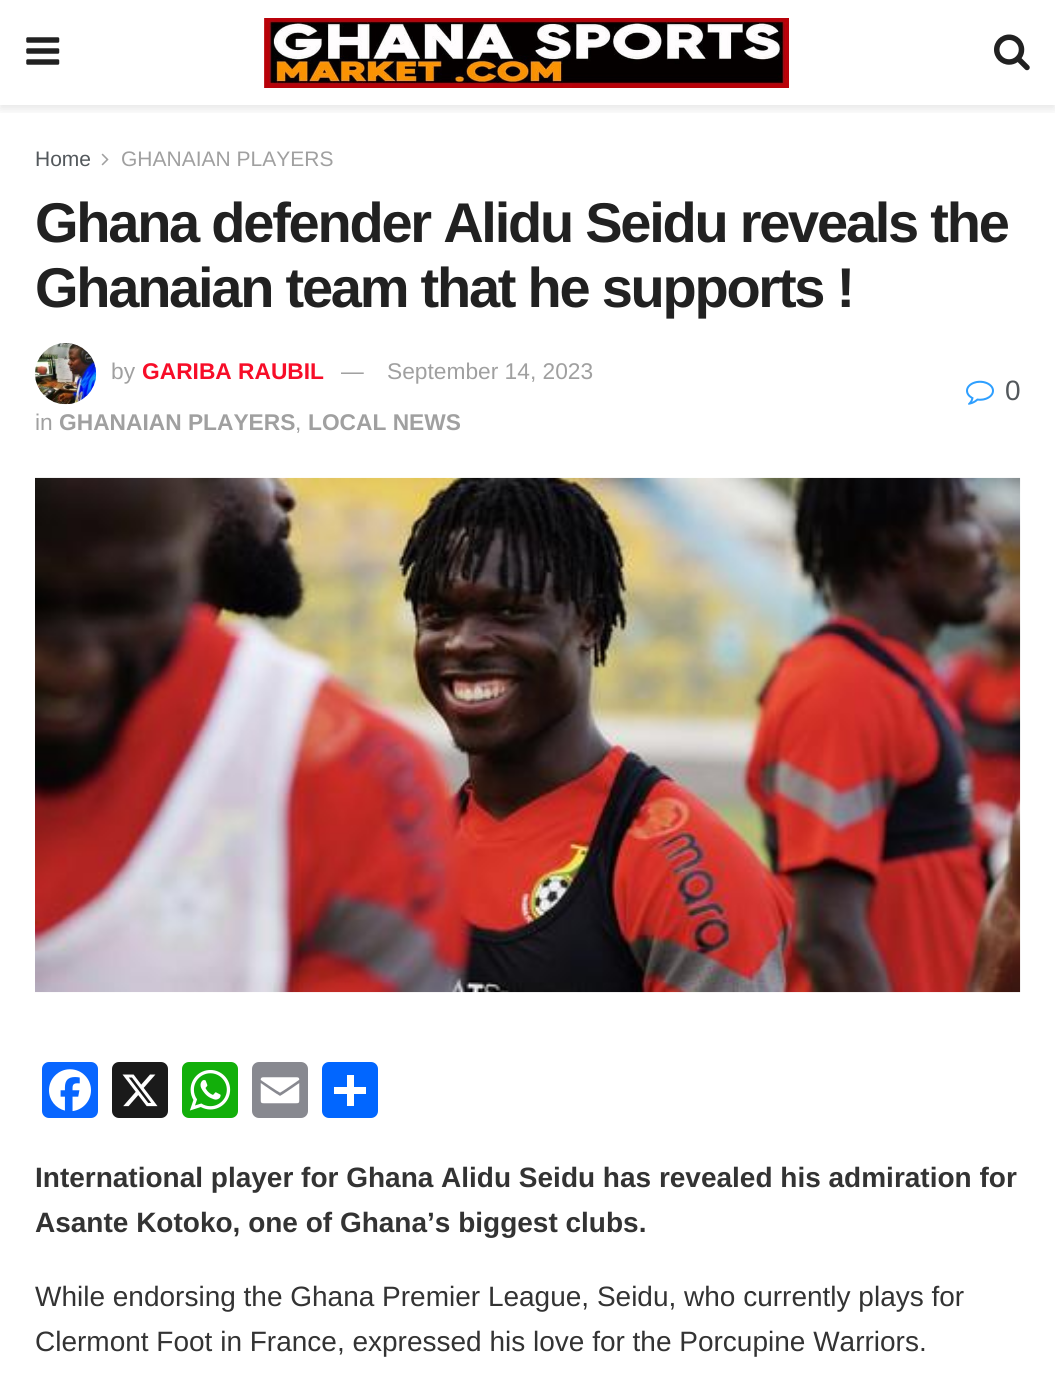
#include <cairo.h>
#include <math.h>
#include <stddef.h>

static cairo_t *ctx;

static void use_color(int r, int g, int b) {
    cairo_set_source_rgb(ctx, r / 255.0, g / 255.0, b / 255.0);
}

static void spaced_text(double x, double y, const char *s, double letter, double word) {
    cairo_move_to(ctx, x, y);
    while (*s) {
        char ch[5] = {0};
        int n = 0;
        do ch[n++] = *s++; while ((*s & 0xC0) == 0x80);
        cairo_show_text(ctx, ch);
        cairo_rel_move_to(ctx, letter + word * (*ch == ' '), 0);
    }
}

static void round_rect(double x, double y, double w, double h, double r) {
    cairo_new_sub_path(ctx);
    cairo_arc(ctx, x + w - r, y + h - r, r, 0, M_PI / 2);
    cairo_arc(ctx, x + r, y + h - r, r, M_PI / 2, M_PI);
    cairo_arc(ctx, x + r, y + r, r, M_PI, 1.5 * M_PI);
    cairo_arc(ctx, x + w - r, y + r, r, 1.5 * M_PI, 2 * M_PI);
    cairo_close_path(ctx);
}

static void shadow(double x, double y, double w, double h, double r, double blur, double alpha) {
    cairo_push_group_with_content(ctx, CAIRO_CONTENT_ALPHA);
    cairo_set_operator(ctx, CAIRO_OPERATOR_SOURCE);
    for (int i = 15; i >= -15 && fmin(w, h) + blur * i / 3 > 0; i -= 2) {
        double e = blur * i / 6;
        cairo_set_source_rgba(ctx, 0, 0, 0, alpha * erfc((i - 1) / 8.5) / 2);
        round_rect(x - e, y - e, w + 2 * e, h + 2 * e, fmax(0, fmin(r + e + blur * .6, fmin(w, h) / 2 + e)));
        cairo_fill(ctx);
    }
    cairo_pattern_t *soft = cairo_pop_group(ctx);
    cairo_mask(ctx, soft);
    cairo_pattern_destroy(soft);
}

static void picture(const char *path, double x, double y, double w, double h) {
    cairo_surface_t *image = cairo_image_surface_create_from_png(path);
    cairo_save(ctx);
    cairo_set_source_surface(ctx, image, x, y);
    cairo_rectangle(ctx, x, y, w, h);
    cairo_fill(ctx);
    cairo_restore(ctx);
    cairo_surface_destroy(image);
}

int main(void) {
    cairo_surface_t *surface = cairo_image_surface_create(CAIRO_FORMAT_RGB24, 1055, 1382);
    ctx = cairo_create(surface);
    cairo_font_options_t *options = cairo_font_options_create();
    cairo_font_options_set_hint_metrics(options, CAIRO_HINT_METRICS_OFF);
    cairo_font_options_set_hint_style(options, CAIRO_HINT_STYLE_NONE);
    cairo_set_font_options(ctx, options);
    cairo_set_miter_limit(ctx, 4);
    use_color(255, 255, 255);
    cairo_paint(ctx);
    cairo_save(ctx);
    cairo_rectangle(ctx, 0, 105, 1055, 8);
    cairo_clip(ctx);
    use_color(0, 0, 0);
    shadow(0, 4, 1055, 105, 0, 5, 0.1);
    cairo_restore(ctx);
    picture("img1.png", 26, 37, 34, 28);
    picture("img2.png", 264, 18, 525, 70);
    picture("img3.png", 994, 34, 36, 37);
    cairo_select_font_face(ctx, "Liberation Sans", CAIRO_FONT_SLANT_NORMAL, CAIRO_FONT_WEIGHT_NORMAL);
    cairo_set_font_size(ctx, 21);
    use_color(83, 88, 92);
    cairo_move_to(ctx, 35, 166);
    cairo_show_text(ctx, "Home");
    picture("img4.png", 101, 153, 8, 13);
    use_color(160, 160, 160);
    cairo_move_to(ctx, 121, 166);
    cairo_show_text(ctx, "GHANAIAN PLAYERS");
    cairo_select_font_face(ctx, "Liberation Sans", CAIRO_FONT_SLANT_NORMAL, CAIRO_FONT_WEIGHT_BOLD);
    cairo_set_font_size(ctx, 56);
    use_color(33, 33, 33);
    spaced_text(35, 242, "Ghana defender Alidu Seidu reveals the", -2.25, 0);
    spaced_text(35, 307, "Ghanaian team that he supports !", -2.25, 0);
    picture("img5.png", 35, 343, 62, 62);
    cairo_select_font_face(ctx, "Liberation Sans", CAIRO_FONT_SLANT_NORMAL, CAIRO_FONT_WEIGHT_NORMAL);
    cairo_set_font_size(ctx, 22.75);
    use_color(160, 160, 160);
    cairo_move_to(ctx, 111, 379);
    cairo_show_text(ctx, "by");
    cairo_select_font_face(ctx, "Liberation Sans", CAIRO_FONT_SLANT_NORMAL, CAIRO_FONT_WEIGHT_BOLD);
    use_color(247, 13, 40);
    cairo_move_to(ctx, 142, 379);
    cairo_show_text(ctx, "GARIBA RAUBIL");
    cairo_select_font_face(ctx, "Liberation Sans", CAIRO_FONT_SLANT_NORMAL, CAIRO_FONT_WEIGHT_NORMAL);
    use_color(160, 160, 160);
    cairo_move_to(ctx, 341, 379);
    cairo_show_text(ctx, "—");
    cairo_move_to(ctx, 387, 379);
    cairo_show_text(ctx, "September 14, 2023");
    cairo_move_to(ctx, 35, 430);
    cairo_show_text(ctx, "in");
    cairo_select_font_face(ctx, "Liberation Sans", CAIRO_FONT_SLANT_NORMAL, CAIRO_FONT_WEIGHT_BOLD);
    cairo_move_to(ctx, 59, 430);
    cairo_show_text(ctx, "GHANAIAN PLAYERS");
    cairo_select_font_face(ctx, "Liberation Sans", CAIRO_FONT_SLANT_NORMAL, CAIRO_FONT_WEIGHT_NORMAL);
    cairo_move_to(ctx, 295, 430);
    cairo_show_text(ctx, ",");
    cairo_select_font_face(ctx, "Liberation Sans", CAIRO_FONT_SLANT_NORMAL, CAIRO_FONT_WEIGHT_BOLD);
    cairo_move_to(ctx, 308, 430);
    cairo_show_text(ctx, "LOCAL NEWS");
    picture("img6.png", 966, 380, 28, 25);
    cairo_select_font_face(ctx, "Liberation Sans", CAIRO_FONT_SLANT_NORMAL, CAIRO_FONT_WEIGHT_NORMAL);
    cairo_set_font_size(ctx, 28);
    use_color(83, 88, 92);
    cairo_move_to(ctx, 1005, 400);
    cairo_show_text(ctx, "0");
    picture("img7.png", 35, 477, 986, 516);
    use_color(8, 102, 255);
    round_rect(42, 1062, 56, 56, 7);
    cairo_fill(ctx);
    picture("img8.png", 49, 1069, 42, 43);
    use_color(26, 26, 26);
    round_rect(112, 1062, 56, 56, 7);
    cairo_fill(ctx);
    picture("img9.png", 122, 1074, 36, 33);
    use_color(18, 175, 10);
    round_rect(182, 1062, 56, 56, 7);
    cairo_fill(ctx);
    picture("img10.png", 189, 1070, 42, 41);
    use_color(136, 137, 144);
    round_rect(252, 1062, 56, 56, 7);
    cairo_fill(ctx);
    picture("img11.png", 260, 1077, 40, 27);
    use_color(1, 102, 255);
    round_rect(322, 1062, 56, 56, 7);
    cairo_fill(ctx);
    use_color(255, 255, 255);
    cairo_rectangle(ctx, 347, 1075, 7, 31);
    cairo_fill(ctx);
    cairo_rectangle(ctx, 334, 1087, 32, 7);
    cairo_fill(ctx);
    cairo_select_font_face(ctx, "Liberation Sans", CAIRO_FONT_SLANT_NORMAL, CAIRO_FONT_WEIGHT_BOLD);
    use_color(51, 51, 51);
    cairo_move_to(ctx, 35, 1187);
    cairo_show_text(ctx, "International player for Ghana Alidu Seidu has revealed his admiration for");
    cairo_move_to(ctx, 35, 1232);
    cairo_show_text(ctx, "Asante Kotoko, one of Ghana’s biggest clubs.");
    cairo_select_font_face(ctx, "Liberation Sans", CAIRO_FONT_SLANT_NORMAL, CAIRO_FONT_WEIGHT_NORMAL);
    cairo_move_to(ctx, 35, 1306);
    cairo_show_text(ctx, "While endorsing the Ghana Premier League, Seidu, who currently plays for");
    cairo_move_to(ctx, 35, 1351);
    cairo_show_text(ctx, "Clermont Foot in France, expressed his love for the Porcupine Warriors.");
    cairo_surface_write_to_png(surface, "result.png");
    cairo_font_options_destroy(options);
    cairo_destroy(ctx);
    cairo_surface_destroy(surface);
    return 0;
}
